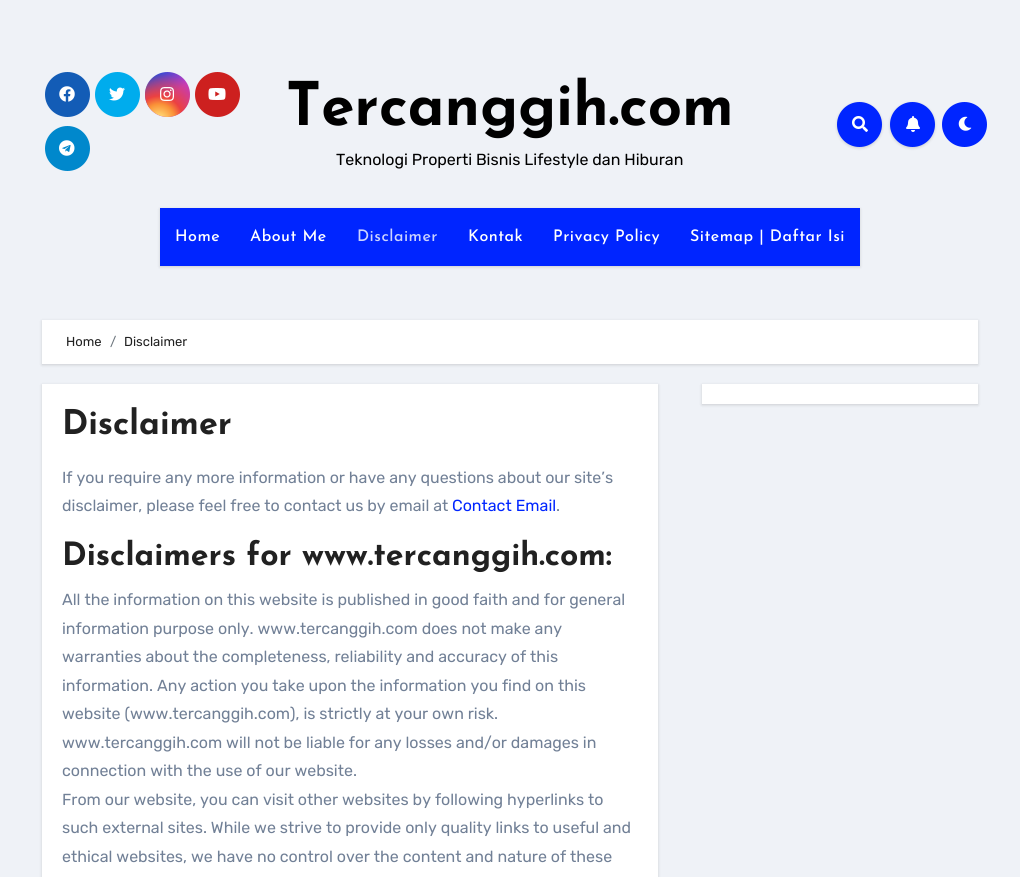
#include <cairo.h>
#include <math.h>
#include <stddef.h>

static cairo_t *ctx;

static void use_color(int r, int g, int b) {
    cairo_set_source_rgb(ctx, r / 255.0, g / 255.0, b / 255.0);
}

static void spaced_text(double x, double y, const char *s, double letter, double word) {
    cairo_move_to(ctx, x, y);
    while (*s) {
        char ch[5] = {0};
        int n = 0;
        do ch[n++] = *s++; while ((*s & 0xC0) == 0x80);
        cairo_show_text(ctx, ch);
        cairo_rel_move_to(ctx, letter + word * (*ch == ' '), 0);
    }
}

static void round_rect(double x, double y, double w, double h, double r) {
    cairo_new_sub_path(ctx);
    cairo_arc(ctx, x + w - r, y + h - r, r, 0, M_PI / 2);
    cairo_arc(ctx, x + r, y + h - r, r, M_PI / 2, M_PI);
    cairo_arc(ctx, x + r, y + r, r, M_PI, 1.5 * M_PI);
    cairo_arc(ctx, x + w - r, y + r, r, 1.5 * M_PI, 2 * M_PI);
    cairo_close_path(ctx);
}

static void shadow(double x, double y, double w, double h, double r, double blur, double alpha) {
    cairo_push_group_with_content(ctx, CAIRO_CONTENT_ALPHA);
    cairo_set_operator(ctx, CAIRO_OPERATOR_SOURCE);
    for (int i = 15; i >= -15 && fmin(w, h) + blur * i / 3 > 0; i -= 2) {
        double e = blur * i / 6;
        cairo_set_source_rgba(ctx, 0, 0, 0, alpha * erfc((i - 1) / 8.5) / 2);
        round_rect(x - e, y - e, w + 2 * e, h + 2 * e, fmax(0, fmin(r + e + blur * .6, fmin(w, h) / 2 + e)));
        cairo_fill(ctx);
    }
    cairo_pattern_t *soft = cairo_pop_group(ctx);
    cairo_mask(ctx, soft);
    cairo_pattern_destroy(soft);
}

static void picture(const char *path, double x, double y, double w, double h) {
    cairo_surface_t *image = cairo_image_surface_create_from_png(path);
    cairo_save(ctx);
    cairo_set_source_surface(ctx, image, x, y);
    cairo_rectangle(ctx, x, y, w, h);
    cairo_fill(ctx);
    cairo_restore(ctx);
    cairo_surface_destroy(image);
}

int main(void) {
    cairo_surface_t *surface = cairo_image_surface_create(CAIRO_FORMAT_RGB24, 1020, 877);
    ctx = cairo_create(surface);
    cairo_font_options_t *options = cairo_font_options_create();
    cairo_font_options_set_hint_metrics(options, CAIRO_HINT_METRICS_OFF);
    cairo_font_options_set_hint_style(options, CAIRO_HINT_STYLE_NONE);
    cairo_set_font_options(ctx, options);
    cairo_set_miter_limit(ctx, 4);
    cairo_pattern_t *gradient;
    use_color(239, 242, 247);
    cairo_paint(ctx);
    use_color(19, 92, 182);
    cairo_arc(ctx, 67.5, 94.5, 22.5, 0, 2 * M_PI);
    cairo_fill(ctx);
    picture("img1.png", 59, 86, 16, 16);
    use_color(0, 172, 237);
    cairo_arc(ctx, 117.5, 94.5, 22.5, 0, 2 * M_PI);
    cairo_fill(ctx);
    picture("img2.png", 109, 87, 16, 14);
    gradient = cairo_pattern_create_linear(145, 72, 190, 117);
    cairo_pattern_add_color_stop_rgba(gradient, 0.12, 0.137, 0.294, 0.843, 1);
    cairo_pattern_add_color_stop_rgba(gradient, 0.58, 0.765, 0.235, 0.745, 1);
    cairo_set_source(ctx, gradient);
    cairo_pattern_destroy(gradient);
    cairo_arc(ctx, 167.5, 94.5, 22.5, 0, 2 * M_PI);
    cairo_fill(ctx);
    gradient = cairo_pattern_create_radial(159, 120, 0, 159, 120, 57);
    cairo_pattern_add_color_stop_rgba(gradient, 0, 1, 0.882, 0.49, 1);
    cairo_pattern_add_color_stop_rgba(gradient, 0.1, 1, 0.804, 0.412, 1);
    cairo_pattern_add_color_stop_rgba(gradient, 0.28, 0.98, 0.569, 0.216, 1);
    cairo_pattern_add_color_stop_rgba(gradient, 0.42, 0.922, 0.255, 0.255, 1);
    cairo_pattern_add_color_stop_rgba(gradient, 0.82, 0.922, 0.255, 0.255, 0);
    cairo_set_source(ctx, gradient);
    cairo_pattern_destroy(gradient);
    cairo_arc(ctx, 167.5, 94.5, 22.5, 0, 2 * M_PI);
    cairo_fill(ctx);
    picture("img3.png", 160, 87, 15, 14);
    use_color(205, 32, 31);
    cairo_arc(ctx, 217.5, 94.5, 22.5, 0, 2 * M_PI);
    cairo_fill(ctx);
    picture("img4.png", 208, 88, 18, 12);
    use_color(0, 136, 204);
    cairo_arc(ctx, 67.5, 148.5, 22.5, 0, 2 * M_PI);
    cairo_fill(ctx);
    picture("img5.png", 59, 140, 16, 16);
    cairo_select_font_face(ctx, "Josefin Sans", CAIRO_FONT_SLANT_NORMAL, CAIRO_FONT_WEIGHT_BOLD);
    cairo_set_font_size(ctx, 60);
    use_color(0, 0, 0);
    cairo_move_to(ctx, 286, 125);
    cairo_show_text(ctx, "Tercanggih.com");
    cairo_select_font_face(ctx, "Rubik Light", CAIRO_FONT_SLANT_NORMAL, CAIRO_FONT_WEIGHT_NORMAL);
    cairo_set_font_size(ctx, 16);
    cairo_move_to(ctx, 336, 165);
    cairo_show_text(ctx, "Teknologi Properti Bisnis Lifestyle dan Hiburan");
    use_color(0, 0, 0);
    shadow(837, 103, 45, 45, 22.5, 1.5, 0.15);
    use_color(0, 37, 255);
    cairo_arc(ctx, 859.5, 124.5, 22.5, 0, 2 * M_PI);
    cairo_fill(ctx);
    picture("img6.png", 852, 116, 16, 16);
    use_color(0, 0, 0);
    shadow(890, 103, 45, 45, 22.5, 1.5, 0.15);
    use_color(0, 37, 255);
    cairo_arc(ctx, 912.5, 124.5, 22.5, 0, 2 * M_PI);
    cairo_fill(ctx);
    picture("img7.png", 906, 116, 14, 16);
    cairo_arc(ctx, 964.5, 124.5, 22.5, 0, 2 * M_PI);
    cairo_fill(ctx);
    picture("img8.png", 958, 116, 14, 15);
    use_color(0, 0, 0);
    shadow(160, 209, 700, 58, 0, 1.5, 0.15);
    use_color(0, 37, 255);
    cairo_rectangle(ctx, 160, 208, 700, 58);
    cairo_fill(ctx);
    cairo_select_font_face(ctx, "Josefin Sans Medium", CAIRO_FONT_SLANT_NORMAL, CAIRO_FONT_WEIGHT_NORMAL);
    use_color(255, 255, 255);
    spaced_text(175, 241, "Home", 0.5, 0);
    spaced_text(250, 241, "About Me", 0.5, 0);
    use_color(204, 211, 255);
    spaced_text(357, 241, "Disclaimer", 0.5, 0);
    use_color(255, 255, 255);
    spaced_text(468, 241, "Kontak", 0.5, 0);
    spaced_text(553, 241, "Privacy Policy", 0.5, 0);
    spaced_text(690, 241, "Sitemap | Daftar Isi", 0.5, 0);
    use_color(0, 0, 0);
    shadow(42, 321, 936, 44, 0, 1.5, 0.15);
    use_color(255, 255, 255);
    cairo_rectangle(ctx, 42, 320, 936, 44);
    cairo_fill(ctx);
    cairo_select_font_face(ctx, "Rubik Light", CAIRO_FONT_SLANT_NORMAL, CAIRO_FONT_WEIGHT_NORMAL);
    cairo_set_font_size(ctx, 13);
    use_color(33, 33, 33);
    cairo_move_to(ctx, 66, 346);
    cairo_show_text(ctx, "Home");
    use_color(108, 117, 125);
    cairo_move_to(ctx, 110, 346);
    cairo_show_text(ctx, "/");
    use_color(33, 33, 33);
    cairo_move_to(ctx, 124, 346);
    cairo_show_text(ctx, "Disclaimer");
    use_color(0, 0, 0);
    shadow(702, 385, 276, 20, 0, 1.5, 0.15);
    use_color(255, 255, 255);
    cairo_rectangle(ctx, 702, 384, 276, 20);
    cairo_fill(ctx);
    use_color(0, 0, 0);
    shadow(42, 385, 616, 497, 0, 1.5, 0.15);
    use_color(255, 255, 255);
    cairo_rectangle(ctx, 42, 384, 616, 493);
    cairo_fill(ctx);
    cairo_select_font_face(ctx, "Josefin Sans", CAIRO_FONT_SLANT_NORMAL, CAIRO_FONT_WEIGHT_BOLD);
    cairo_set_font_size(ctx, 34);
    use_color(33, 33, 33);
    cairo_move_to(ctx, 62, 434);
    cairo_show_text(ctx, "Disclaimer");
    cairo_select_font_face(ctx, "Rubik Light", CAIRO_FONT_SLANT_NORMAL, CAIRO_FONT_WEIGHT_NORMAL);
    cairo_set_font_size(ctx, 16);
    use_color(113, 128, 150);
    cairo_move_to(ctx, 62, 483);
    cairo_show_text(ctx, "If you require any more information or have any questions about our site’s");
    cairo_move_to(ctx, 62, 511);
    cairo_show_text(ctx, "disclaimer, please feel free to contact us by email at");
    use_color(0, 37, 255);
    cairo_move_to(ctx, 452, 511);
    cairo_show_text(ctx, "Contact Email");
    use_color(113, 128, 150);
    cairo_move_to(ctx, 556, 511);
    cairo_show_text(ctx, ".");
    cairo_select_font_face(ctx, "Josefin Sans", CAIRO_FONT_SLANT_NORMAL, CAIRO_FONT_WEIGHT_BOLD);
    cairo_set_font_size(ctx, 32);
    use_color(33, 33, 33);
    cairo_move_to(ctx, 62, 565);
    cairo_show_text(ctx, "Disclaimers for www.tercanggih.com:");
    cairo_select_font_face(ctx, "Rubik Light", CAIRO_FONT_SLANT_NORMAL, CAIRO_FONT_WEIGHT_NORMAL);
    cairo_set_font_size(ctx, 16);
    use_color(113, 128, 150);
    cairo_move_to(ctx, 62, 605);
    cairo_show_text(ctx, "All the information on this website is published in good faith and for general");
    cairo_move_to(ctx, 62, 634);
    cairo_show_text(ctx, "information purpose only. www.tercanggih.com does not make any");
    cairo_move_to(ctx, 62, 662);
    cairo_show_text(ctx, "warranties about the completeness, reliability and accuracy of this");
    cairo_move_to(ctx, 62, 691);
    cairo_show_text(ctx, "information. Any action you take upon the information you find on this");
    cairo_move_to(ctx, 62, 719);
    cairo_show_text(ctx, "website (www.tercanggih.com), is strictly at your own risk.");
    cairo_move_to(ctx, 62, 748);
    cairo_show_text(ctx, "www.tercanggih.com will not be liable for any losses and/or damages in");
    cairo_move_to(ctx, 62, 776);
    cairo_show_text(ctx, "connection with the use of our website.");
    cairo_move_to(ctx, 62, 805);
    cairo_show_text(ctx, "From our website, you can visit other websites by following hyperlinks to");
    cairo_move_to(ctx, 62, 833);
    cairo_show_text(ctx, "such external sites. While we strive to provide only quality links to useful and");
    cairo_move_to(ctx, 62, 862);
    cairo_show_text(ctx, "ethical websites, we have no control over the content and nature of these");
    cairo_surface_write_to_png(surface, "result.png");
    cairo_font_options_destroy(options);
    cairo_destroy(ctx);
    cairo_surface_destroy(surface);
    return 0;
}
